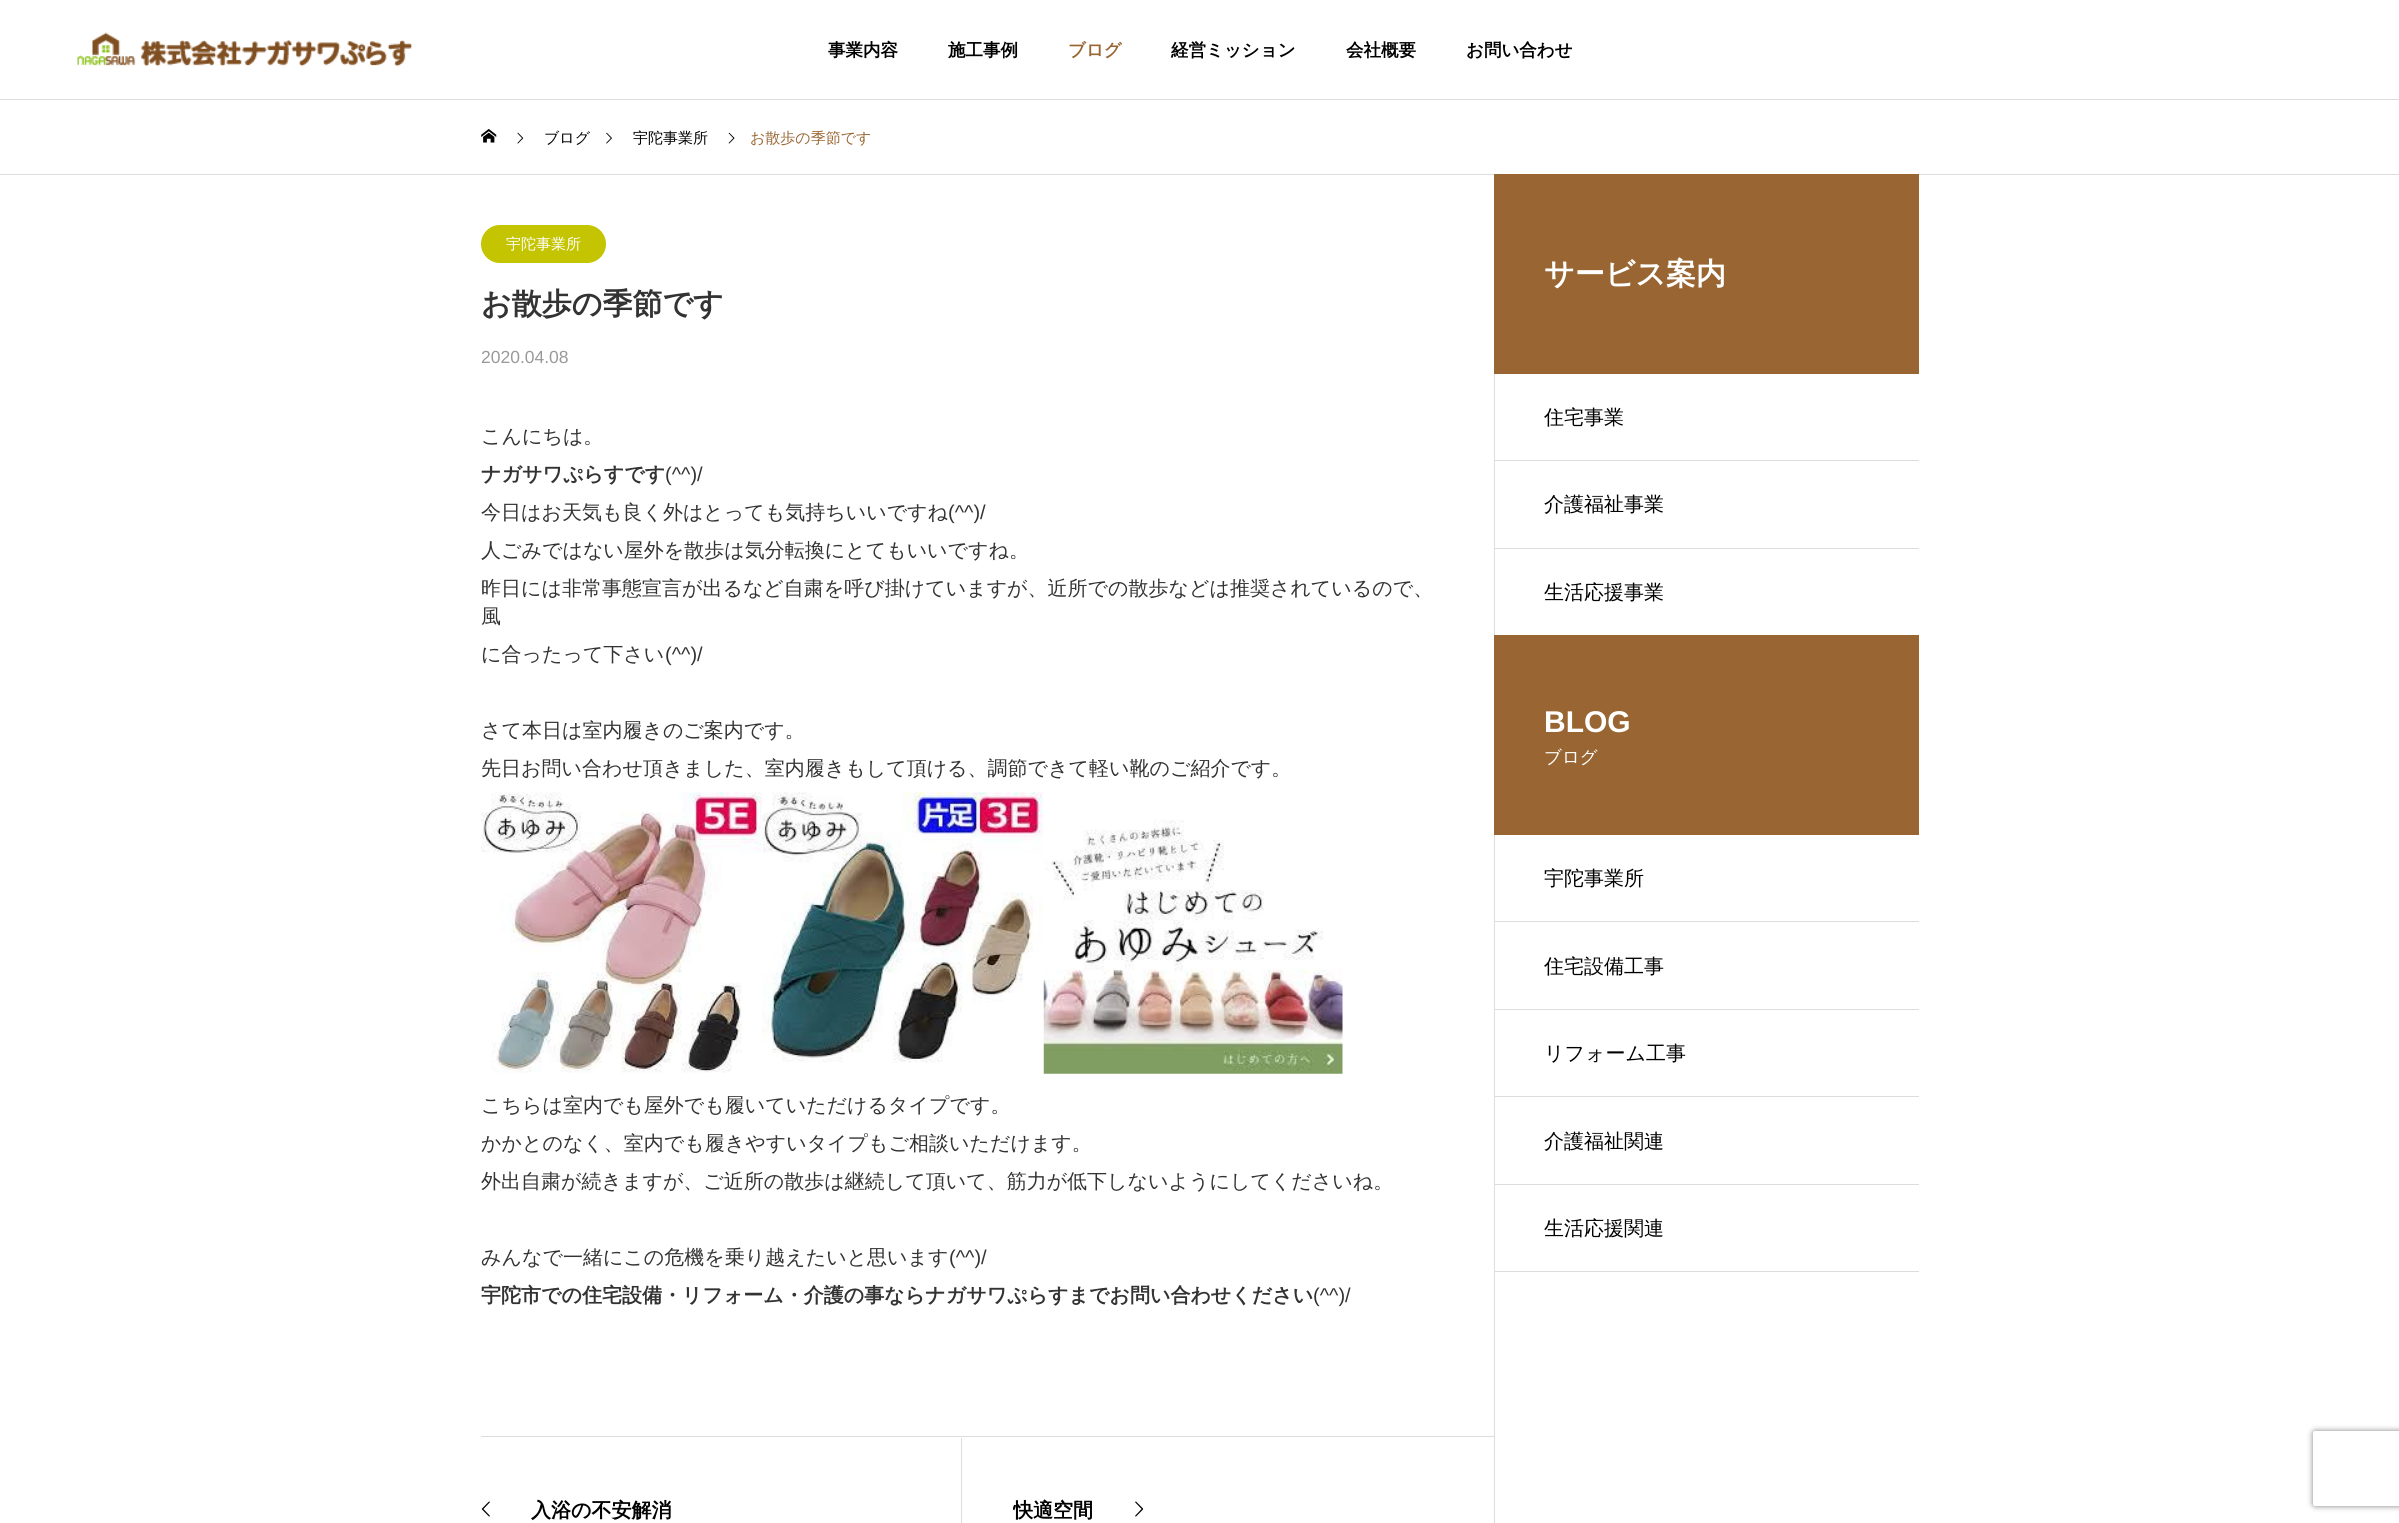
#include <cairo.h>
#include <math.h>
#include <stddef.h>

static cairo_t *ctx;

static void use_color(int r, int g, int b) {
    cairo_set_source_rgb(ctx, r / 255.0, g / 255.0, b / 255.0);
}

static void round_rect(double x, double y, double w, double h, double r) {
    cairo_new_sub_path(ctx);
    cairo_arc(ctx, x + w - r, y + h - r, r, 0, M_PI / 2);
    cairo_arc(ctx, x + r, y + h - r, r, M_PI / 2, M_PI);
    cairo_arc(ctx, x + r, y + r, r, M_PI, 1.5 * M_PI);
    cairo_arc(ctx, x + w - r, y + r, r, 1.5 * M_PI, 2 * M_PI);
    cairo_close_path(ctx);
}

static void shadow(double x, double y, double w, double h, double r, double blur, double alpha) {
    cairo_push_group_with_content(ctx, CAIRO_CONTENT_ALPHA);
    cairo_set_operator(ctx, CAIRO_OPERATOR_SOURCE);
    for (int i = 15; i >= -15 && fmin(w, h) + blur * i / 3 > 0; i -= 2) {
        double e = blur * i / 6;
        cairo_set_source_rgba(ctx, 0, 0, 0, alpha * erfc((i - 1) / 8.5) / 2);
        round_rect(x - e, y - e, w + 2 * e, h + 2 * e, fmax(0, fmin(r + e + blur * .6, fmin(w, h) / 2 + e)));
        cairo_fill(ctx);
    }
    cairo_pattern_t *soft = cairo_pop_group(ctx);
    cairo_mask(ctx, soft);
    cairo_pattern_destroy(soft);
}

static void picture(const char *path, double x, double y, double w, double h) {
    cairo_surface_t *image = cairo_image_surface_create_from_png(path);
    cairo_save(ctx);
    cairo_set_source_surface(ctx, image, x, y);
    cairo_rectangle(ctx, x, y, w, h);
    cairo_fill(ctx);
    cairo_restore(ctx);
    cairo_surface_destroy(image);
}

int main(void) {
    cairo_surface_t *surface = cairo_image_surface_create(CAIRO_FORMAT_RGB24, 2399, 1523);
    ctx = cairo_create(surface);
    cairo_font_options_t *options = cairo_font_options_create();
    cairo_font_options_set_hint_metrics(options, CAIRO_HINT_METRICS_OFF);
    cairo_font_options_set_hint_style(options, CAIRO_HINT_STYLE_NONE);
    cairo_set_font_options(ctx, options);
    cairo_set_miter_limit(ctx, 4);
    use_color(255, 255, 255);
    cairo_paint(ctx);
    picture("img1.png", 77, 32, 335, 35);
    cairo_select_font_face(ctx, "WenQuanYi Zen Hei", CAIRO_FONT_SLANT_NORMAL, CAIRO_FONT_WEIGHT_BOLD);
    cairo_set_font_size(ctx, 17.5);
    use_color(0, 0, 0);
    cairo_move_to(ctx, 828, 56);
    cairo_show_text(ctx, "事業内容");
    cairo_move_to(ctx, 948, 56);
    cairo_show_text(ctx, "施工事例");
    use_color(153, 102, 51);
    cairo_move_to(ctx, 1068, 56);
    cairo_show_text(ctx, "ブログ");
    use_color(0, 0, 0);
    cairo_move_to(ctx, 1171, 56);
    cairo_show_text(ctx, "経営ミッション");
    cairo_move_to(ctx, 1346, 56);
    cairo_show_text(ctx, "会社概要");
    cairo_move_to(ctx, 1466, 56);
    cairo_show_text(ctx, "お問い合わせ");
    use_color(221, 221, 221);
    cairo_rectangle(ctx, 0, 99, 2399, 1);
    cairo_fill(ctx);
    cairo_rectangle(ctx, 0, 174, 2399, 1);
    cairo_fill(ctx);
    picture("img2.png", 481, 129, 16, 14);
    picture("img3.png", 517, 132, 7, 12);
    cairo_select_font_face(ctx, "WenQuanYi Zen Hei Medium", CAIRO_FONT_SLANT_NORMAL, CAIRO_FONT_WEIGHT_NORMAL);
    cairo_set_font_size(ctx, 15);
    use_color(0, 0, 0);
    cairo_move_to(ctx, 544, 143);
    cairo_show_text(ctx, "ブログ");
    picture("img4.png", 606, 132, 6, 12);
    cairo_move_to(ctx, 633, 143);
    cairo_show_text(ctx, "宇陀事業所");
    picture("img5.png", 728, 132, 7, 12);
    use_color(153, 102, 51);
    cairo_move_to(ctx, 750, 143);
    cairo_show_text(ctx, "お散歩の季節です");
    use_color(196, 196, 0);
    round_rect(481, 225, 125, 38, 19);
    cairo_fill(ctx);
    use_color(255, 255, 255);
    cairo_move_to(ctx, 506, 249);
    cairo_show_text(ctx, "宇陀事業所");
    cairo_select_font_face(ctx, "WenQuanYi Zen Hei", CAIRO_FONT_SLANT_NORMAL, CAIRO_FONT_WEIGHT_BOLD);
    cairo_set_font_size(ctx, 30);
    use_color(51, 51, 51);
    cairo_move_to(ctx, 481, 314);
    cairo_show_text(ctx, "お散歩の季節です");
    cairo_select_font_face(ctx, "Liberation Sans", CAIRO_FONT_SLANT_NORMAL, CAIRO_FONT_WEIGHT_NORMAL);
    cairo_set_font_size(ctx, 17.5);
    use_color(153, 153, 153);
    cairo_move_to(ctx, 481, 363);
    cairo_show_text(ctx, "2020.04.08");
    cairo_select_font_face(ctx, "WenQuanYi Zen Hei Medium", CAIRO_FONT_SLANT_NORMAL, CAIRO_FONT_WEIGHT_NORMAL);
    cairo_set_font_size(ctx, 20);
    use_color(51, 51, 51);
    cairo_move_to(ctx, 481, 443);
    cairo_show_text(ctx, "こんにちは。");
    cairo_select_font_face(ctx, "WenQuanYi Zen Hei", CAIRO_FONT_SLANT_NORMAL, CAIRO_FONT_WEIGHT_BOLD);
    cairo_move_to(ctx, 481, 481);
    cairo_show_text(ctx, "ナガサワぷらすです");
    cairo_select_font_face(ctx, "Liberation Sans", CAIRO_FONT_SLANT_NORMAL, CAIRO_FONT_WEIGHT_NORMAL);
    cairo_move_to(ctx, 665, 481);
    cairo_show_text(ctx, "(^^)/");
    cairo_select_font_face(ctx, "WenQuanYi Zen Hei Medium", CAIRO_FONT_SLANT_NORMAL, CAIRO_FONT_WEIGHT_NORMAL);
    cairo_move_to(ctx, 481, 519);
    cairo_show_text(ctx, "今日はお天気も良く外はとっても気持ちいいですね");
    cairo_select_font_face(ctx, "Liberation Sans", CAIRO_FONT_SLANT_NORMAL, CAIRO_FONT_WEIGHT_NORMAL);
    cairo_move_to(ctx, 948, 519);
    cairo_show_text(ctx, "(^^)/");
    cairo_select_font_face(ctx, "WenQuanYi Zen Hei Medium", CAIRO_FONT_SLANT_NORMAL, CAIRO_FONT_WEIGHT_NORMAL);
    cairo_move_to(ctx, 481, 557);
    cairo_show_text(ctx, "人ごみではない屋外を散歩は気分転換にとてもいいですね。");
    cairo_move_to(ctx, 481, 595);
    cairo_show_text(ctx, "昨日には非常事態宣言が出るなど自粛を呼び掛けていますが、近所での散歩などは推奨されているので、");
    cairo_move_to(ctx, 481, 623);
    cairo_show_text(ctx, "風");
    cairo_move_to(ctx, 481, 661);
    cairo_show_text(ctx, "に合ったって下さい");
    cairo_select_font_face(ctx, "Liberation Sans", CAIRO_FONT_SLANT_NORMAL, CAIRO_FONT_WEIGHT_NORMAL);
    cairo_move_to(ctx, 665, 661);
    cairo_show_text(ctx, "(^^)/");
    cairo_select_font_face(ctx, "WenQuanYi Zen Hei Medium", CAIRO_FONT_SLANT_NORMAL, CAIRO_FONT_WEIGHT_NORMAL);
    cairo_move_to(ctx, 481, 737);
    cairo_show_text(ctx, "さて本日は室内履きのご案内です。");
    cairo_move_to(ctx, 481, 775);
    cairo_show_text(ctx, "先日お問い合わせ頂きました、室内履きもして頂ける、調節できて軽い靴のご紹介です。");
    picture("img6.png", 481, 792, 282, 281);
    picture("img7.png", 762, 792, 282, 271);
    picture("img8.png", 1043, 820, 300, 254);
    cairo_move_to(ctx, 481, 1112);
    cairo_show_text(ctx, "こちらは室内でも屋外でも履いていただけるタイプです。");
    cairo_move_to(ctx, 481, 1150);
    cairo_show_text(ctx, "かかとのなく、室内でも履きやすいタイプもご相談いただけます。");
    cairo_move_to(ctx, 481, 1188);
    cairo_show_text(ctx, "外出自粛が続きますが、ご近所の散歩は継続して頂いて、筋力が低下しないようにしてくださいね。");
    cairo_move_to(ctx, 481, 1264);
    cairo_show_text(ctx, "みんなで一緒にこの危機を乗り越えたいと思います");
    cairo_select_font_face(ctx, "Liberation Sans", CAIRO_FONT_SLANT_NORMAL, CAIRO_FONT_WEIGHT_NORMAL);
    cairo_move_to(ctx, 949, 1264);
    cairo_show_text(ctx, "(^^)/");
    cairo_select_font_face(ctx, "WenQuanYi Zen Hei", CAIRO_FONT_SLANT_NORMAL, CAIRO_FONT_WEIGHT_BOLD);
    cairo_move_to(ctx, 481, 1302);
    cairo_show_text(ctx, "宇陀市での住宅設備・リフォーム・介護の事ならナガサワぷらすまでお問い合わせください");
    cairo_select_font_face(ctx, "Liberation Sans", CAIRO_FONT_SLANT_NORMAL, CAIRO_FONT_WEIGHT_NORMAL);
    cairo_move_to(ctx, 1313, 1302);
    cairo_show_text(ctx, "(^^)/");
    use_color(221, 221, 221);
    cairo_rectangle(ctx, 481, 1436, 1013, 1);
    cairo_fill(ctx);
    cairo_rectangle(ctx, 961, 1438, 1, 85);
    cairo_fill(ctx);
    picture("img9.png", 481, 1501, 9, 16);
    cairo_select_font_face(ctx, "WenQuanYi Zen Hei", CAIRO_FONT_SLANT_NORMAL, CAIRO_FONT_WEIGHT_BOLD);
    use_color(0, 0, 0);
    cairo_move_to(ctx, 531, 1517);
    cairo_show_text(ctx, "入浴の不安解消");
    cairo_save(ctx);
    cairo_rectangle(ctx, 1013, 1495, 130, 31);
    cairo_clip(ctx);
    cairo_move_to(ctx, 1013, 1517);
    cairo_show_text(ctx, "快適空間");
    cairo_restore(ctx);
    picture("img10.png", 1135, 1501, 8, 16);
    use_color(221, 221, 221);
    cairo_rectangle(ctx, 1494, 460, 425, 1);
    cairo_fill(ctx);
    cairo_rectangle(ctx, 1494, 548, 425, 1);
    cairo_fill(ctx);
    cairo_rectangle(ctx, 1494, 921, 425, 1);
    cairo_fill(ctx);
    cairo_rectangle(ctx, 1494, 1009, 425, 1);
    cairo_fill(ctx);
    cairo_rectangle(ctx, 1494, 1096, 425, 1);
    cairo_fill(ctx);
    cairo_rectangle(ctx, 1494, 1184, 425, 1);
    cairo_fill(ctx);
    cairo_rectangle(ctx, 1494, 1271, 425, 1);
    cairo_fill(ctx);
    cairo_rectangle(ctx, 1494, 374, 1, 1149);
    cairo_fill(ctx);
    use_color(153, 102, 51);
    cairo_rectangle(ctx, 1494, 174, 425, 200);
    cairo_fill(ctx);
    cairo_set_font_size(ctx, 30);
    use_color(255, 255, 255);
    cairo_move_to(ctx, 1544, 284);
    cairo_show_text(ctx, "サービス案内");
    cairo_select_font_face(ctx, "WenQuanYi Zen Hei Medium", CAIRO_FONT_SLANT_NORMAL, CAIRO_FONT_WEIGHT_NORMAL);
    cairo_set_font_size(ctx, 20);
    use_color(0, 0, 0);
    cairo_move_to(ctx, 1544, 424);
    cairo_show_text(ctx, "住宅事業");
    cairo_move_to(ctx, 1544, 511);
    cairo_show_text(ctx, "介護福祉事業");
    cairo_move_to(ctx, 1544, 599);
    cairo_show_text(ctx, "生活応援事業");
    use_color(153, 102, 51);
    cairo_rectangle(ctx, 1494, 635, 425, 200);
    cairo_fill(ctx);
    cairo_select_font_face(ctx, "Liberation Sans", CAIRO_FONT_SLANT_NORMAL, CAIRO_FONT_WEIGHT_BOLD);
    cairo_set_font_size(ctx, 30);
    use_color(255, 255, 255);
    cairo_move_to(ctx, 1544, 732);
    cairo_show_text(ctx, "BLOG");
    cairo_select_font_face(ctx, "WenQuanYi Zen Hei Medium", CAIRO_FONT_SLANT_NORMAL, CAIRO_FONT_WEIGHT_NORMAL);
    cairo_set_font_size(ctx, 17.5);
    cairo_move_to(ctx, 1544, 763);
    cairo_show_text(ctx, "ブログ");
    cairo_set_font_size(ctx, 20);
    use_color(0, 0, 0);
    cairo_move_to(ctx, 1544, 885);
    cairo_show_text(ctx, "宇陀事業所");
    cairo_move_to(ctx, 1544, 973);
    cairo_show_text(ctx, "住宅設備工事");
    cairo_move_to(ctx, 1544, 1060);
    cairo_show_text(ctx, "リフォーム工事");
    cairo_move_to(ctx, 1544, 1148);
    cairo_show_text(ctx, "介護福祉関連");
    cairo_move_to(ctx, 1544, 1235);
    cairo_show_text(ctx, "生活応援関連");
    cairo_save(ctx);
    cairo_set_fill_rule(ctx, CAIRO_FILL_RULE_EVEN_ODD);
    cairo_new_path(ctx);
    cairo_move_to(ctx, 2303, 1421);
    cairo_line_to(ctx, 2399, 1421);
    cairo_line_to(ctx, 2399, 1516);
    cairo_line_to(ctx, 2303, 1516);
    cairo_close_path(ctx);
    cairo_move_to(ctx, 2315.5, 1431);
    cairo_line_to(ctx, 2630.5, 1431);
    cairo_curve_to(ctx, 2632, 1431, 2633, 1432, 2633, 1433.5);
    cairo_line_to(ctx, 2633, 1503.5);
    cairo_curve_to(ctx, 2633, 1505, 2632, 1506, 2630.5, 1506);
    cairo_line_to(ctx, 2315.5, 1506);
    cairo_curve_to(ctx, 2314, 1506, 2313, 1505, 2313, 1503.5);
    cairo_line_to(ctx, 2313, 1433.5);
    cairo_curve_to(ctx, 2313, 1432, 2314, 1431, 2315.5, 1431);
    cairo_close_path(ctx);
    cairo_clip(ctx);
    use_color(128, 128, 128);
    shadow(2313, 1431, 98, 75, 2.5, 3, 1);
    cairo_restore(ctx);
    cairo_surface_write_to_png(surface, "result.png");
    cairo_font_options_destroy(options);
    cairo_destroy(ctx);
    cairo_surface_destroy(surface);
    return 0;
}
